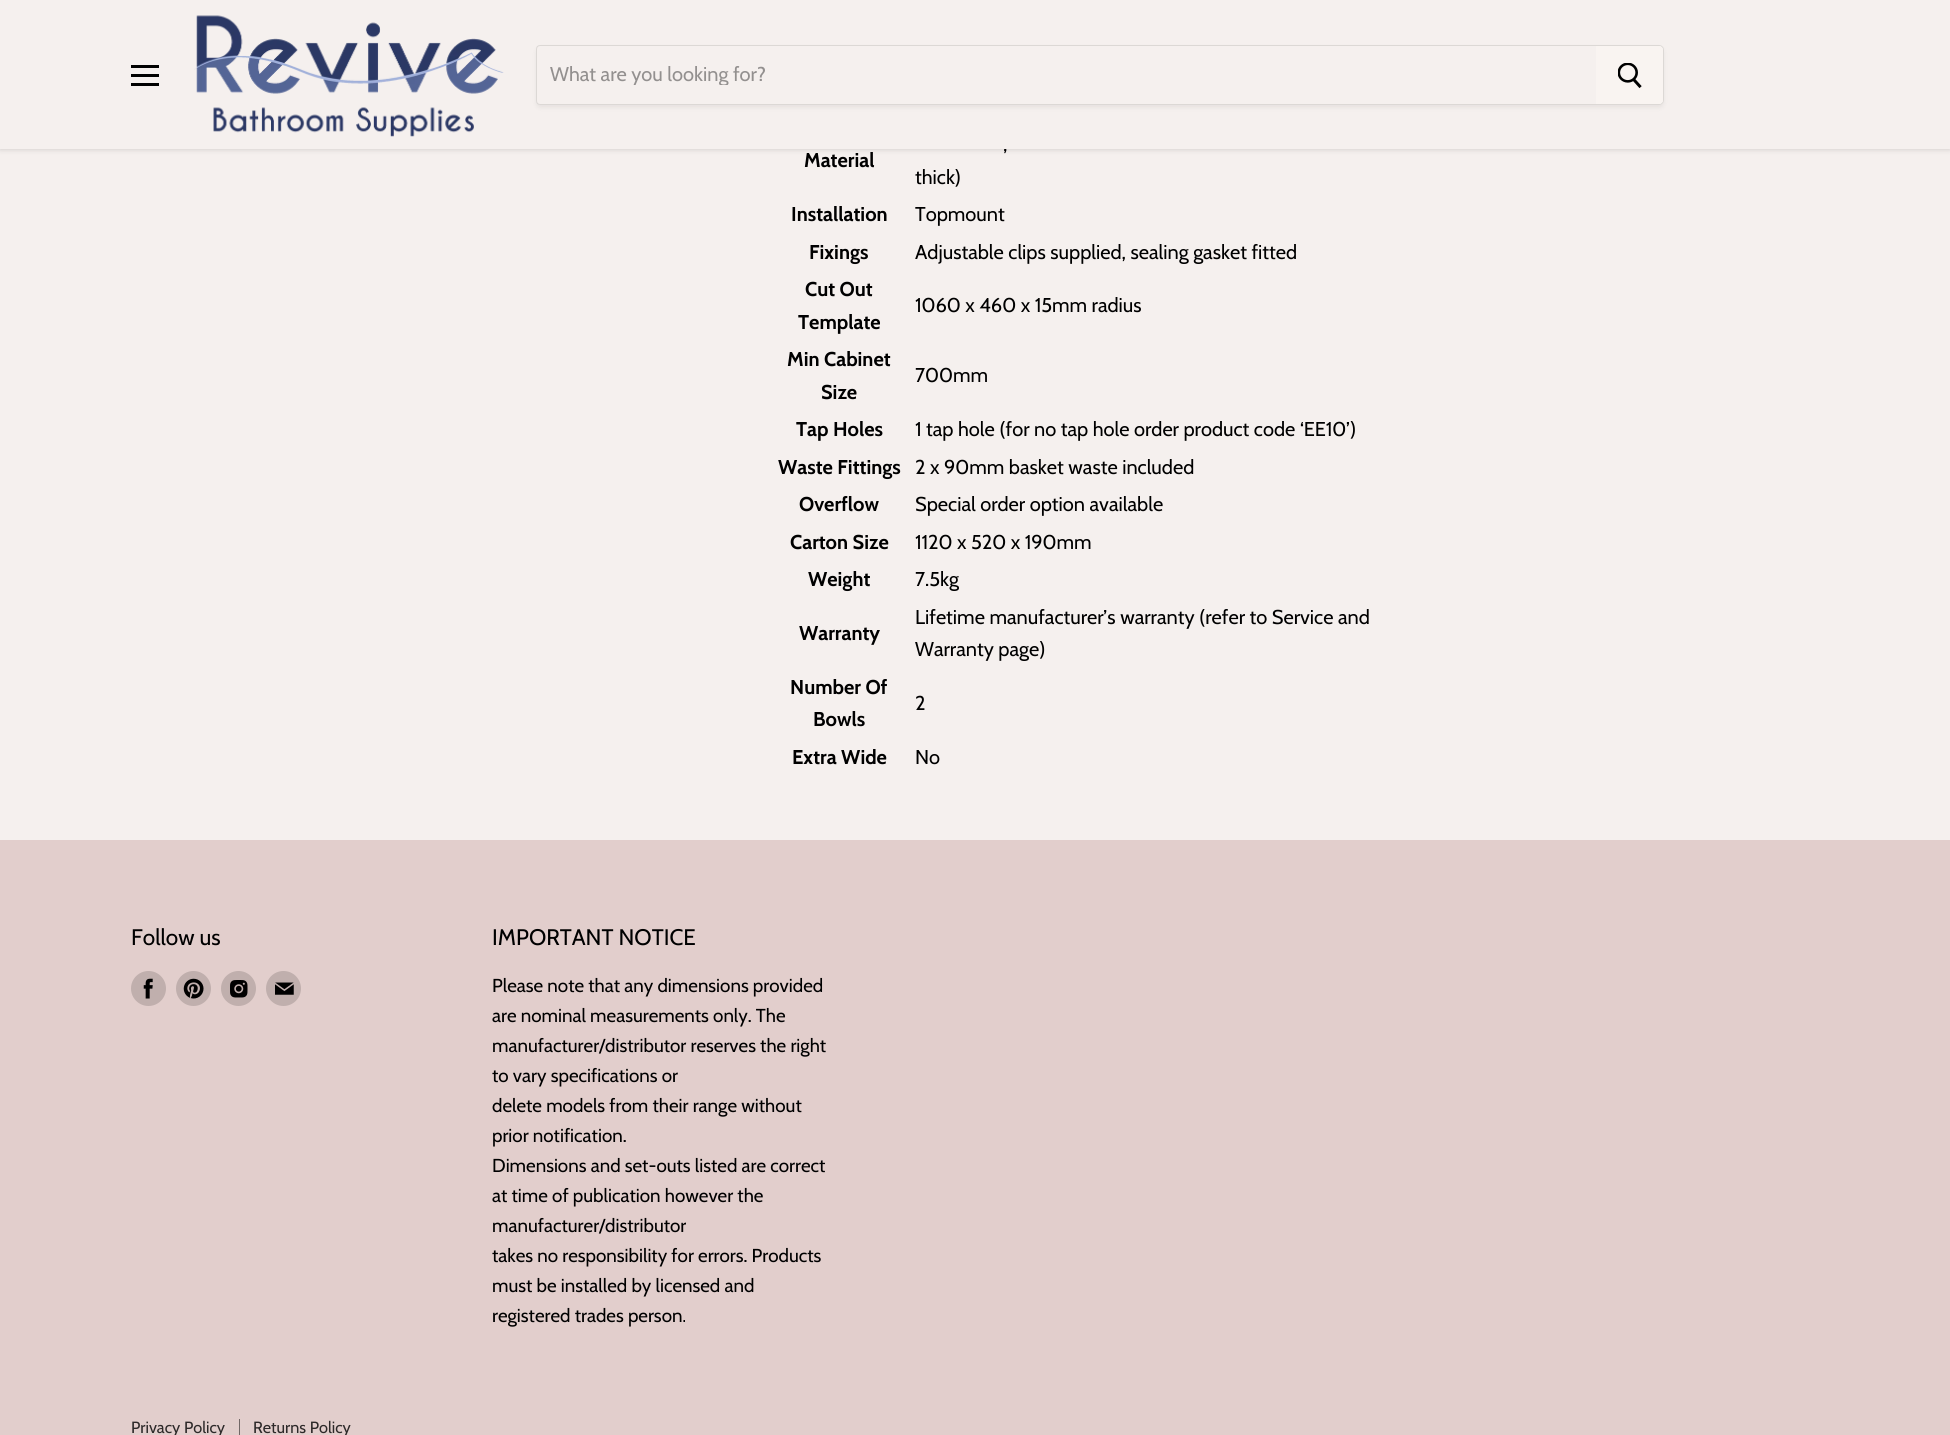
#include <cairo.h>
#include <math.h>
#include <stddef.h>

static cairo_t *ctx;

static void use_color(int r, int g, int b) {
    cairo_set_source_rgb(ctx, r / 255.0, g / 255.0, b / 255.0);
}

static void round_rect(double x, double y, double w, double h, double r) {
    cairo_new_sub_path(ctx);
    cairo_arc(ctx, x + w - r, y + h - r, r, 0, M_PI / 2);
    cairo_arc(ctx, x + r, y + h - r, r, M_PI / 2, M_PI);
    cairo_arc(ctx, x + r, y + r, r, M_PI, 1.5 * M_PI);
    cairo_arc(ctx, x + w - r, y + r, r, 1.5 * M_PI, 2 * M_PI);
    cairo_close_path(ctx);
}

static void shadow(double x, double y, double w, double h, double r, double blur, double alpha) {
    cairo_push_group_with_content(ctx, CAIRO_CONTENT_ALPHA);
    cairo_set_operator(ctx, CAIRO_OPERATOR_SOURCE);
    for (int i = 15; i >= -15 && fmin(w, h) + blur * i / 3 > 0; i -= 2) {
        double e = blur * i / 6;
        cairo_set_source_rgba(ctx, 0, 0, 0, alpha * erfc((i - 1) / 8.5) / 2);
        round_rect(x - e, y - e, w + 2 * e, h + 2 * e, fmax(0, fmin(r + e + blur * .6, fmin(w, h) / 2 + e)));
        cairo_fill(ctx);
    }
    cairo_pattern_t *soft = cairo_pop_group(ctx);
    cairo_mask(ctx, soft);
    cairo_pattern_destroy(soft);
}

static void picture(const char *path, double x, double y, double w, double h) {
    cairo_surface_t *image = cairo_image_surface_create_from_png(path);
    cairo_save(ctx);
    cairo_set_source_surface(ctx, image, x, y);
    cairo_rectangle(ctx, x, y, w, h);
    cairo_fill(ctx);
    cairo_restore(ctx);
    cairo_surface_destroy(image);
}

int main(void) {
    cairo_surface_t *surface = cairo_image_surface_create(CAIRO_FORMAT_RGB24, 1950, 1435);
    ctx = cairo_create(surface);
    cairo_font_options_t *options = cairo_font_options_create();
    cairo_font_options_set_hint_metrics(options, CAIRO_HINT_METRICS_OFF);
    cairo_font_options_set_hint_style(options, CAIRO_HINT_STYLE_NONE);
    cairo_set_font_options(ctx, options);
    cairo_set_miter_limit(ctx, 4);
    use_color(245, 240, 238);
    cairo_paint(ctx);
    use_color(122, 120, 119);
    shadow(0, -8, 1950, 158, 0, 2.5, 0.25);
    cairo_select_font_face(ctx, "Cabin", CAIRO_FONT_SLANT_NORMAL, CAIRO_FONT_WEIGHT_NORMAL);
    cairo_set_font_size(ctx, 20);
    use_color(0, 0, 0);
    cairo_move_to(ctx, 1003, 151);
    cairo_show_text(ctx, ",");
    use_color(245, 240, 238);
    cairo_rectangle(ctx, 0, 0, 1950, 149);
    cairo_fill(ctx);
    use_color(0, 0, 0);
    cairo_rectangle(ctx, 131, 65, 28, 3);
    cairo_fill(ctx);
    cairo_rectangle(ctx, 131, 74, 28, 3);
    cairo_fill(ctx);
    cairo_rectangle(ctx, 131, 83, 28, 3);
    cairo_fill(ctx);
    picture("img1.png", 194, 15, 310, 122);
    cairo_save(ctx);
    cairo_set_fill_rule(ctx, CAIRO_FILL_RULE_EVEN_ODD);
    cairo_new_path(ctx);
    cairo_move_to(ctx, 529, 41);
    cairo_line_to(ctx, 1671, 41);
    cairo_line_to(ctx, 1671, 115);
    cairo_line_to(ctx, 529, 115);
    cairo_close_path(ctx);
    cairo_move_to(ctx, 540, 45);
    cairo_line_to(ctx, 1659, 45);
    cairo_curve_to(ctx, 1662, 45, 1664, 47, 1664, 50);
    cairo_line_to(ctx, 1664, 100);
    cairo_curve_to(ctx, 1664, 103, 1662, 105, 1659, 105);
    cairo_line_to(ctx, 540, 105);
    cairo_curve_to(ctx, 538, 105, 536, 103, 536, 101);
    cairo_line_to(ctx, 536, 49);
    cairo_curve_to(ctx, 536, 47, 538, 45, 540, 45);
    cairo_close_path(ctx);
    cairo_clip(ctx);
    use_color(122, 120, 119);
    shadow(536, 48, 1128, 60, 5, 2, 0.11);
    cairo_restore(ctx);
    cairo_new_path(ctx);
    cairo_move_to(ctx, 540, 45.5);
    cairo_line_to(ctx, 1659, 45.5);
    cairo_curve_to(ctx, 1661.5, 45.5, 1663.5, 47.5, 1663.5, 50);
    cairo_line_to(ctx, 1663.5, 100);
    cairo_curve_to(ctx, 1663.5, 102.5, 1661.5, 104.5, 1659, 104.5);
    cairo_line_to(ctx, 540, 104.5);
    cairo_curve_to(ctx, 538, 104.5, 536.5, 103, 536.5, 101);
    cairo_line_to(ctx, 536.5, 49);
    cairo_curve_to(ctx, 536.5, 47, 538, 45.5, 540, 45.5);
    cairo_close_path(ctx);
    cairo_set_source_rgba(ctx, 0.478, 0.471, 0.467, 0.2);
    cairo_set_line_width(ctx, 1);
    cairo_stroke(ctx);
    cairo_save(ctx);
    cairo_rectangle(ctx, 550, 61, 1034, 24);
    cairo_clip(ctx);
    use_color(147, 144, 143);
    cairo_move_to(ctx, 550, 81);
    cairo_show_text(ctx, "What are you looking for?");
    cairo_restore(ctx);
    use_color(249, 244, 241);
    cairo_new_path(ctx);
    cairo_move_to(ctx, 1596.5, 46.5);
    cairo_line_to(ctx, 1659, 46.5);
    cairo_curve_to(ctx, 1661, 46.5, 1662.5, 48, 1662.5, 50);
    cairo_line_to(ctx, 1662.5, 100);
    cairo_curve_to(ctx, 1662.5, 102, 1661, 103.5, 1659, 103.5);
    cairo_line_to(ctx, 1596.5, 103.5);
    cairo_close_path(ctx);
    cairo_fill_preserve(ctx);
    cairo_stroke(ctx);
    picture("img2.png", 1618, 63, 24, 26);
    cairo_select_font_face(ctx, "Cabin", CAIRO_FONT_SLANT_NORMAL, CAIRO_FONT_WEIGHT_BOLD);
    use_color(0, 0, 0);
    cairo_move_to(ctx, 804, 167);
    cairo_show_text(ctx, "Material");
    cairo_select_font_face(ctx, "Cabin", CAIRO_FONT_SLANT_NORMAL, CAIRO_FONT_WEIGHT_NORMAL);
    cairo_move_to(ctx, 915, 184);
    cairo_show_text(ctx, "thick)");
    cairo_select_font_face(ctx, "Cabin", CAIRO_FONT_SLANT_NORMAL, CAIRO_FONT_WEIGHT_BOLD);
    cairo_move_to(ctx, 791, 221);
    cairo_show_text(ctx, "Installation");
    cairo_select_font_face(ctx, "Cabin", CAIRO_FONT_SLANT_NORMAL, CAIRO_FONT_WEIGHT_NORMAL);
    cairo_move_to(ctx, 915, 221);
    cairo_show_text(ctx, "Topmount");
    cairo_select_font_face(ctx, "Cabin", CAIRO_FONT_SLANT_NORMAL, CAIRO_FONT_WEIGHT_BOLD);
    cairo_move_to(ctx, 809, 259);
    cairo_show_text(ctx, "Fixings");
    cairo_select_font_face(ctx, "Cabin", CAIRO_FONT_SLANT_NORMAL, CAIRO_FONT_WEIGHT_NORMAL);
    cairo_move_to(ctx, 915, 259);
    cairo_show_text(ctx, "Adjustable clips supplied, sealing gasket fitted");
    cairo_select_font_face(ctx, "Cabin", CAIRO_FONT_SLANT_NORMAL, CAIRO_FONT_WEIGHT_BOLD);
    cairo_move_to(ctx, 805, 296);
    cairo_show_text(ctx, "Cut Out");
    cairo_move_to(ctx, 798, 329);
    cairo_show_text(ctx, "Template");
    cairo_select_font_face(ctx, "Cabin", CAIRO_FONT_SLANT_NORMAL, CAIRO_FONT_WEIGHT_NORMAL);
    cairo_move_to(ctx, 915, 312);
    cairo_show_text(ctx, "1060 x 460 x 15mm radius");
    cairo_select_font_face(ctx, "Cabin", CAIRO_FONT_SLANT_NORMAL, CAIRO_FONT_WEIGHT_BOLD);
    cairo_move_to(ctx, 787, 366);
    cairo_show_text(ctx, "Min Cabinet");
    cairo_move_to(ctx, 821, 399);
    cairo_show_text(ctx, "Size");
    cairo_select_font_face(ctx, "Cabin", CAIRO_FONT_SLANT_NORMAL, CAIRO_FONT_WEIGHT_NORMAL);
    cairo_move_to(ctx, 915, 382);
    cairo_show_text(ctx, "700mm");
    cairo_select_font_face(ctx, "Cabin", CAIRO_FONT_SLANT_NORMAL, CAIRO_FONT_WEIGHT_BOLD);
    cairo_move_to(ctx, 796, 436);
    cairo_show_text(ctx, "Tap Holes");
    cairo_select_font_face(ctx, "Cabin", CAIRO_FONT_SLANT_NORMAL, CAIRO_FONT_WEIGHT_NORMAL);
    cairo_move_to(ctx, 915, 436);
    cairo_show_text(ctx, "1 tap hole (for no tap hole order product code ‘EE10’)");
    cairo_select_font_face(ctx, "Cabin", CAIRO_FONT_SLANT_NORMAL, CAIRO_FONT_WEIGHT_BOLD);
    cairo_move_to(ctx, 778, 474);
    cairo_show_text(ctx, "Waste Fittings");
    cairo_select_font_face(ctx, "Cabin", CAIRO_FONT_SLANT_NORMAL, CAIRO_FONT_WEIGHT_NORMAL);
    cairo_move_to(ctx, 915, 474);
    cairo_show_text(ctx, "2 x 90mm basket waste included");
    cairo_select_font_face(ctx, "Cabin", CAIRO_FONT_SLANT_NORMAL, CAIRO_FONT_WEIGHT_BOLD);
    cairo_move_to(ctx, 799, 511);
    cairo_show_text(ctx, "Overflow");
    cairo_select_font_face(ctx, "Cabin", CAIRO_FONT_SLANT_NORMAL, CAIRO_FONT_WEIGHT_NORMAL);
    cairo_move_to(ctx, 915, 511);
    cairo_show_text(ctx, "Special order option available");
    cairo_select_font_face(ctx, "Cabin", CAIRO_FONT_SLANT_NORMAL, CAIRO_FONT_WEIGHT_BOLD);
    cairo_move_to(ctx, 790, 549);
    cairo_show_text(ctx, "Carton Size");
    cairo_select_font_face(ctx, "Cabin", CAIRO_FONT_SLANT_NORMAL, CAIRO_FONT_WEIGHT_NORMAL);
    cairo_move_to(ctx, 915, 549);
    cairo_show_text(ctx, "1120 x 520 x 190mm");
    cairo_select_font_face(ctx, "Cabin", CAIRO_FONT_SLANT_NORMAL, CAIRO_FONT_WEIGHT_BOLD);
    cairo_move_to(ctx, 808, 586);
    cairo_show_text(ctx, "Weight");
    cairo_select_font_face(ctx, "Cabin", CAIRO_FONT_SLANT_NORMAL, CAIRO_FONT_WEIGHT_NORMAL);
    cairo_move_to(ctx, 915, 586);
    cairo_show_text(ctx, "7.5kg");
    cairo_select_font_face(ctx, "Cabin", CAIRO_FONT_SLANT_NORMAL, CAIRO_FONT_WEIGHT_BOLD);
    cairo_move_to(ctx, 799, 640);
    cairo_show_text(ctx, "Warranty");
    cairo_select_font_face(ctx, "Cabin", CAIRO_FONT_SLANT_NORMAL, CAIRO_FONT_WEIGHT_NORMAL);
    cairo_move_to(ctx, 915, 624);
    cairo_show_text(ctx, "Lifetime manufacturer’s warranty (refer to Service and");
    cairo_move_to(ctx, 915, 656);
    cairo_show_text(ctx, "Warranty page)");
    cairo_select_font_face(ctx, "Cabin", CAIRO_FONT_SLANT_NORMAL, CAIRO_FONT_WEIGHT_BOLD);
    cairo_move_to(ctx, 790, 694);
    cairo_show_text(ctx, "Number Of");
    cairo_move_to(ctx, 813, 726);
    cairo_show_text(ctx, "Bowls");
    cairo_select_font_face(ctx, "Cabin", CAIRO_FONT_SLANT_NORMAL, CAIRO_FONT_WEIGHT_NORMAL);
    cairo_move_to(ctx, 915, 710);
    cairo_show_text(ctx, "2");
    cairo_select_font_face(ctx, "Cabin", CAIRO_FONT_SLANT_NORMAL, CAIRO_FONT_WEIGHT_BOLD);
    cairo_move_to(ctx, 792, 764);
    cairo_show_text(ctx, "Extra Wide");
    cairo_select_font_face(ctx, "Cabin", CAIRO_FONT_SLANT_NORMAL, CAIRO_FONT_WEIGHT_NORMAL);
    cairo_move_to(ctx, 915, 764);
    cairo_show_text(ctx, "No");
    use_color(226, 206, 204);
    cairo_rectangle(ctx, 0, 840, 1950, 595);
    cairo_fill(ctx);
    cairo_set_font_size(ctx, 22.5);
    use_color(0, 0, 0);
    cairo_move_to(ctx, 131, 945);
    cairo_show_text(ctx, "Follow us");
    use_color(192, 175, 173);
    cairo_new_path(ctx);
    cairo_arc(ctx, 148.5, 988.5, 17.5, 0, 2 * M_PI);
    cairo_fill(ctx);
    picture("img3.png", 143, 978, 10, 21);
    cairo_arc(ctx, 193.5, 988.5, 17.5, 0, 2 * M_PI);
    cairo_fill(ctx);
    picture("img4.png", 183, 978, 21, 21);
    cairo_arc(ctx, 238.5, 988.5, 17.5, 0, 2 * M_PI);
    cairo_fill(ctx);
    picture("img5.png", 230, 980, 18, 18);
    cairo_arc(ctx, 283.5, 988.5, 17.5, 0, 2 * M_PI);
    cairo_fill(ctx);
    picture("img6.png", 275, 982, 19, 13);
    use_color(0, 0, 0);
    cairo_move_to(ctx, 492, 945);
    cairo_show_text(ctx, "IMPORTANT NOTICE");
    cairo_set_font_size(ctx, 18.75);
    cairo_move_to(ctx, 492, 992);
    cairo_show_text(ctx, "Please note that any dimensions provided");
    cairo_move_to(ctx, 492, 1022);
    cairo_show_text(ctx, "are nominal measurements only. The");
    cairo_move_to(ctx, 492, 1052);
    cairo_show_text(ctx, "manufacturer/distributor reserves the right");
    cairo_move_to(ctx, 492, 1082);
    cairo_show_text(ctx, "to vary specifications or");
    cairo_move_to(ctx, 492, 1112);
    cairo_show_text(ctx, "delete models from their range without");
    cairo_move_to(ctx, 492, 1142);
    cairo_show_text(ctx, "prior notification.");
    cairo_move_to(ctx, 492, 1172);
    cairo_show_text(ctx, "Dimensions and set-outs listed are correct");
    cairo_move_to(ctx, 492, 1202);
    cairo_show_text(ctx, "at time of publication however the");
    cairo_move_to(ctx, 492, 1232);
    cairo_show_text(ctx, "manufacturer/distributor");
    cairo_move_to(ctx, 492, 1262);
    cairo_show_text(ctx, "takes no responsibility for errors. Products");
    cairo_move_to(ctx, 492, 1292);
    cairo_show_text(ctx, "must be installed by licensed and");
    cairo_move_to(ctx, 492, 1322);
    cairo_show_text(ctx, "registered trades person.");
    use_color(113, 103, 102);
    cairo_rectangle(ctx, 239, 1419, 1, 16);
    cairo_fill(ctx);
    cairo_set_font_size(ctx, 16.25);
    use_color(45, 41, 41);
    cairo_move_to(ctx, 131, 1433);
    cairo_show_text(ctx, "Privacy Policy");
    cairo_move_to(ctx, 253, 1433);
    cairo_show_text(ctx, "Returns Policy");
    cairo_surface_write_to_png(surface, "result.png");
    cairo_font_options_destroy(options);
    cairo_destroy(ctx);
    cairo_surface_destroy(surface);
    return 0;
}
